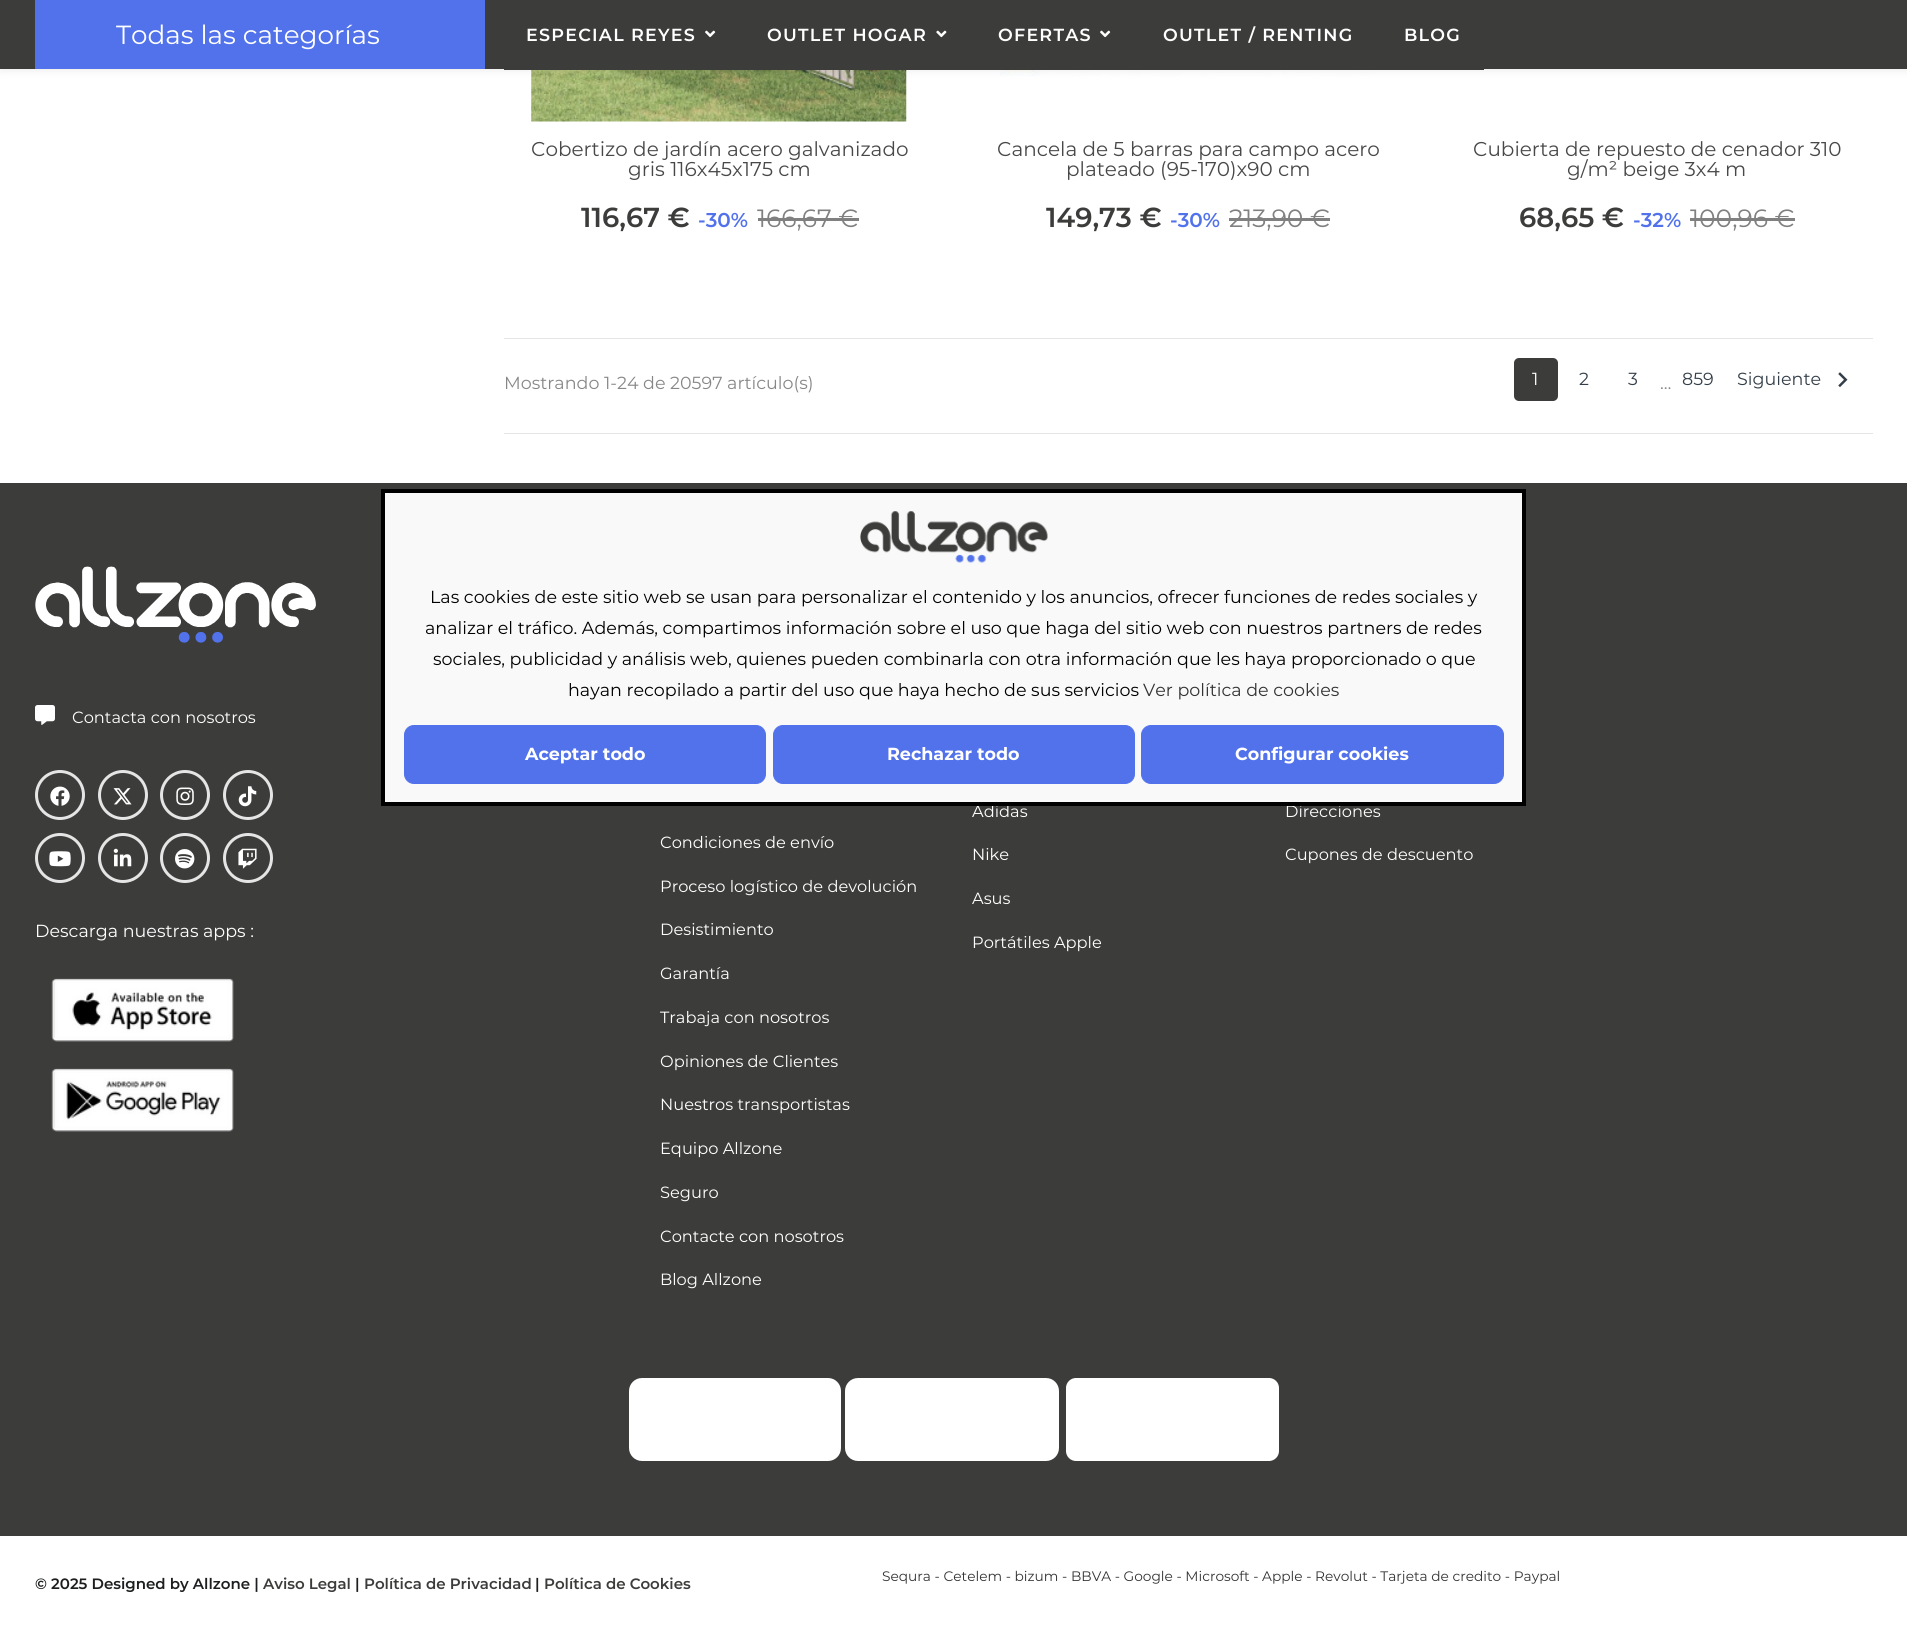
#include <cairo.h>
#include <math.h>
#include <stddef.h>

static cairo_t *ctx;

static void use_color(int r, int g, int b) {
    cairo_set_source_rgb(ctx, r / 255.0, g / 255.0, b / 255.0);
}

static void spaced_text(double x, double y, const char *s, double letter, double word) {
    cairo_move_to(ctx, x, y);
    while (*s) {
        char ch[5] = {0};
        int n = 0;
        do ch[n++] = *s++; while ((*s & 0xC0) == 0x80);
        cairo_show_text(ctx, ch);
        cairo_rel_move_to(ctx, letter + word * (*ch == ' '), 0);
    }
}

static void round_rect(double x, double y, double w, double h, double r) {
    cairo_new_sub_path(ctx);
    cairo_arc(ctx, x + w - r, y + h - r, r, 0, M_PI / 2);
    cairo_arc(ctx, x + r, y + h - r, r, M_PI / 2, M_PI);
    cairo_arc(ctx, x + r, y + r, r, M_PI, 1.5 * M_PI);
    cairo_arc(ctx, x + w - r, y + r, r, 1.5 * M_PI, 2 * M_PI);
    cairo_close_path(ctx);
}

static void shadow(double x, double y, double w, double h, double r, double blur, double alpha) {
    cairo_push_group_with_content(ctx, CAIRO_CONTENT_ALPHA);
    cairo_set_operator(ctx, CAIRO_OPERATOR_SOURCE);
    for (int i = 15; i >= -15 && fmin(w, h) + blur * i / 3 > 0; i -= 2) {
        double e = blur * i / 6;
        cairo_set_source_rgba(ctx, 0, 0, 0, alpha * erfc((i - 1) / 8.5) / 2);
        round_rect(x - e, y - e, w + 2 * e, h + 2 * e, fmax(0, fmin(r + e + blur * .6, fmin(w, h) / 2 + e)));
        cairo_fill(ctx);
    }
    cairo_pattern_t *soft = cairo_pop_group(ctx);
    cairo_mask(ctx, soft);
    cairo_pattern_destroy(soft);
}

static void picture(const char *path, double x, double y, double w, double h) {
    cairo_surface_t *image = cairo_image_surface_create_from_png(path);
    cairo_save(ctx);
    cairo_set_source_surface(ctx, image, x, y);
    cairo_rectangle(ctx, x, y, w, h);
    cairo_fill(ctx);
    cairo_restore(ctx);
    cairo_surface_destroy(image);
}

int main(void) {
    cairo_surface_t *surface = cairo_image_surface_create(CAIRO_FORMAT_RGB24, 1907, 1630);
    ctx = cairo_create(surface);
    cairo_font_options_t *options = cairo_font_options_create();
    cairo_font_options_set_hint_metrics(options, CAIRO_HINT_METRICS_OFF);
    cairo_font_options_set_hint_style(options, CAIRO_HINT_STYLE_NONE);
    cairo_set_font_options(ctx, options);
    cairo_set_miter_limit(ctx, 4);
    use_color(255, 255, 255);
    cairo_paint(ctx);
    picture("img3.png", 531, 70, 376, 52);
    picture("img4.png", 1000, 70, 370, 6);
    use_color(0, 0, 0);
    shadow(0, 0, 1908, 69, 0, 5, 0.1);
    use_color(60, 60, 59);
    cairo_rectangle(ctx, 0, 0, 1907, 69);
    cairo_fill(ctx);
    use_color(82, 114, 235);
    cairo_rectangle(ctx, 35, 0, 450, 69);
    cairo_fill(ctx);
    cairo_select_font_face(ctx, "Montserrat", CAIRO_FONT_SLANT_NORMAL, CAIRO_FONT_WEIGHT_NORMAL);
    cairo_set_font_size(ctx, 26.25);
    use_color(255, 255, 255);
    cairo_move_to(ctx, 116, 44);
    cairo_show_text(ctx, "Todas las categorías");
    use_color(60, 60, 59);
    cairo_rectangle(ctx, 504, 69, 980, 1);
    cairo_fill(ctx);
    cairo_select_font_face(ctx, "Montserrat SemiBold", CAIRO_FONT_SLANT_NORMAL, CAIRO_FONT_WEIGHT_NORMAL);
    cairo_set_font_size(ctx, 17.5);
    use_color(255, 255, 255);
    spaced_text(526, 41, "ESPECIAL REYES", 1.25, 0);
    picture("img1.png", 705, 30, 11, 8);
    spaced_text(767, 41, "OUTLET HOGAR", 1.25, 0);
    picture("img2.png", 936, 30, 11, 8);
    spaced_text(998, 41, "OFERTAS", 1.25, 0);
    picture("img1.png", 1100, 30, 11, 8);
    spaced_text(1163, 41, "OUTLET / RENTING", 1.25, 0);
    spaced_text(1404, 41, "BLOG", 1.25, 0);
    cairo_select_font_face(ctx, "Montserrat", CAIRO_FONT_SLANT_NORMAL, CAIRO_FONT_WEIGHT_NORMAL);
    cairo_set_font_size(ctx, 20);
    use_color(72, 72, 72);
    cairo_move_to(ctx, 531, 156);
    cairo_show_text(ctx, "Cobertizo de jardín acero galvanizado");
    cairo_move_to(ctx, 628, 176);
    cairo_show_text(ctx, "gris 116x45x175 cm");
    cairo_select_font_face(ctx, "Montserrat SemiBold", CAIRO_FONT_SLANT_NORMAL, CAIRO_FONT_WEIGHT_NORMAL);
    cairo_set_font_size(ctx, 27.5);
    use_color(60, 60, 59);
    cairo_move_to(ctx, 581, 227);
    cairo_show_text(ctx, "116,67 €");
    cairo_set_font_size(ctx, 20);
    use_color(82, 114, 235);
    cairo_move_to(ctx, 698, 227);
    cairo_show_text(ctx, "-30%");
    cairo_select_font_face(ctx, "Montserrat", CAIRO_FONT_SLANT_NORMAL, CAIRO_FONT_WEIGHT_NORMAL);
    cairo_set_font_size(ctx, 25);
    use_color(128, 128, 128);
    cairo_move_to(ctx, 757, 227);
    cairo_show_text(ctx, "166,67 €");
    cairo_rectangle(ctx, 758, 218, 101, 3);
    cairo_fill(ctx);
    cairo_set_font_size(ctx, 20);
    use_color(72, 72, 72);
    cairo_move_to(ctx, 997, 156);
    cairo_show_text(ctx, "Cancela de 5 barras para campo acero");
    cairo_move_to(ctx, 1066, 176);
    cairo_show_text(ctx, "plateado (95-170)x90 cm");
    cairo_select_font_face(ctx, "Montserrat SemiBold", CAIRO_FONT_SLANT_NORMAL, CAIRO_FONT_WEIGHT_NORMAL);
    cairo_set_font_size(ctx, 27.5);
    use_color(60, 60, 59);
    cairo_move_to(ctx, 1046, 227);
    cairo_show_text(ctx, "149,73 €");
    cairo_set_font_size(ctx, 20);
    use_color(82, 114, 235);
    cairo_move_to(ctx, 1170, 227);
    cairo_show_text(ctx, "-30%");
    cairo_select_font_face(ctx, "Montserrat", CAIRO_FONT_SLANT_NORMAL, CAIRO_FONT_WEIGHT_NORMAL);
    cairo_set_font_size(ctx, 25);
    use_color(128, 128, 128);
    cairo_move_to(ctx, 1229, 227);
    cairo_show_text(ctx, "213,90 €");
    cairo_rectangle(ctx, 1229, 218, 101, 3);
    cairo_fill(ctx);
    cairo_set_font_size(ctx, 20);
    use_color(72, 72, 72);
    cairo_move_to(ctx, 1473, 156);
    cairo_show_text(ctx, "Cubierta de repuesto de cenador 310");
    cairo_move_to(ctx, 1567, 176);
    cairo_show_text(ctx, "g/m² beige 3x4 m");
    cairo_select_font_face(ctx, "Montserrat SemiBold", CAIRO_FONT_SLANT_NORMAL, CAIRO_FONT_WEIGHT_NORMAL);
    cairo_set_font_size(ctx, 27.5);
    use_color(60, 60, 59);
    cairo_move_to(ctx, 1519, 227);
    cairo_show_text(ctx, "68,65 €");
    cairo_set_font_size(ctx, 20);
    use_color(82, 114, 235);
    cairo_move_to(ctx, 1633, 227);
    cairo_show_text(ctx, "-32%");
    cairo_select_font_face(ctx, "Montserrat", CAIRO_FONT_SLANT_NORMAL, CAIRO_FONT_WEIGHT_NORMAL);
    cairo_set_font_size(ctx, 25);
    use_color(128, 128, 128);
    cairo_move_to(ctx, 1690, 227);
    cairo_show_text(ctx, "100,96 €");
    cairo_rectangle(ctx, 1690, 218, 105, 3);
    cairo_fill(ctx);
    use_color(229, 229, 229);
    cairo_rectangle(ctx, 504, 338, 1369, 1);
    cairo_fill(ctx);
    cairo_rectangle(ctx, 504, 433, 1369, 1);
    cairo_fill(ctx);
    cairo_set_font_size(ctx, 17.5);
    use_color(135, 135, 135);
    cairo_move_to(ctx, 504, 389);
    cairo_show_text(ctx, "Mostrando 1-24 de 20597 artículo(s)");
    use_color(60, 60, 59);
    round_rect(1514, 358, 44, 43, 5);
    cairo_fill(ctx);
    use_color(255, 255, 255);
    cairo_move_to(ctx, 1532, 385);
    cairo_show_text(ctx, "1");
    use_color(51, 62, 72);
    cairo_move_to(ctx, 1579, 385);
    cairo_show_text(ctx, "2");
    cairo_move_to(ctx, 1628, 385);
    cairo_show_text(ctx, "3");
    use_color(135, 135, 135);
    cairo_move_to(ctx, 1660, 389);
    cairo_show_text(ctx, "…");
    use_color(51, 62, 72);
    cairo_move_to(ctx, 1682, 385);
    cairo_show_text(ctx, "859");
    cairo_move_to(ctx, 1737, 385);
    cairo_show_text(ctx, "Siguiente");
    picture("img5.png", 1838, 372, 10, 16);
    use_color(60, 60, 59);
    cairo_rectangle(ctx, 0, 483, 1907, 1053);
    cairo_fill(ctx);
    picture("img6.png", 35, 566, 281, 77);
    picture("img7.png", 35, 705, 20, 20);
    cairo_set_font_size(ctx, 16.25);
    use_color(255, 255, 255);
    cairo_move_to(ctx, 72, 723);
    cairo_show_text(ctx, "Contacta con nosotros");
    cairo_new_path(ctx);
    cairo_arc(ctx, 60, 795, 23.5, 0, 2 * M_PI);
    use_color(229, 229, 229);
    cairo_set_line_width(ctx, 3);
    cairo_stroke(ctx);
    picture("img8.png", 50, 786, 20, 20);
    cairo_arc(ctx, 123, 795, 23.5, 0, 2 * M_PI);
    cairo_stroke(ctx);
    picture("img9.png", 113, 788, 19, 17);
    cairo_arc(ctx, 185, 795, 23.5, 0, 2 * M_PI);
    cairo_stroke(ctx);
    picture("img10.png", 176, 787, 18, 18);
    cairo_arc(ctx, 248, 795, 23.5, 0, 2 * M_PI);
    cairo_stroke(ctx);
    picture("img11.png", 238, 786, 19, 21);
    cairo_arc(ctx, 60, 858, 23.5, 0, 2 * M_PI);
    cairo_stroke(ctx);
    picture("img12.png", 49, 851, 22, 16);
    cairo_arc(ctx, 123, 858, 23.5, 0, 2 * M_PI);
    cairo_stroke(ctx);
    picture("img13.png", 113, 848, 19, 19);
    cairo_arc(ctx, 185, 858, 23.5, 0, 2 * M_PI);
    cairo_stroke(ctx);
    picture("img14.png", 175, 849, 20, 20);
    cairo_arc(ctx, 248, 858, 23.5, 0, 2 * M_PI);
    cairo_stroke(ctx);
    picture("img15.png", 238, 848, 19, 21);
    cairo_set_font_size(ctx, 17.5);
    use_color(255, 255, 255);
    cairo_move_to(ctx, 35, 937);
    cairo_show_text(ctx, "Descarga nuestras apps :");
    picture("img16.png", 51, 978, 183, 64);
    picture("img17.png", 51, 1068, 183, 64);
    cairo_set_font_size(ctx, 16.25);
    cairo_move_to(ctx, 660, 848);
    cairo_show_text(ctx, "Condiciones de envío");
    cairo_move_to(ctx, 660, 892);
    cairo_show_text(ctx, "Proceso logístico de devolución");
    cairo_move_to(ctx, 660, 935);
    cairo_show_text(ctx, "Desistimiento");
    cairo_move_to(ctx, 660, 979);
    cairo_show_text(ctx, "Garantía");
    cairo_move_to(ctx, 660, 1023);
    cairo_show_text(ctx, "Trabaja con nosotros");
    cairo_move_to(ctx, 660, 1067);
    cairo_show_text(ctx, "Opiniones de Clientes");
    cairo_move_to(ctx, 660, 1110);
    cairo_show_text(ctx, "Nuestros transportistas");
    cairo_move_to(ctx, 660, 1154);
    cairo_show_text(ctx, "Equipo Allzone");
    cairo_move_to(ctx, 660, 1198);
    cairo_show_text(ctx, "Seguro");
    cairo_move_to(ctx, 660, 1242);
    cairo_show_text(ctx, "Contacte con nosotros");
    cairo_move_to(ctx, 660, 1285);
    cairo_show_text(ctx, "Blog Allzone");
    cairo_move_to(ctx, 972, 817);
    cairo_show_text(ctx, "Adidas");
    cairo_move_to(ctx, 972, 860);
    cairo_show_text(ctx, "Nike");
    cairo_move_to(ctx, 972, 904);
    cairo_show_text(ctx, "Asus");
    cairo_move_to(ctx, 972, 948);
    cairo_show_text(ctx, "Portátiles Apple");
    cairo_move_to(ctx, 1285, 817);
    cairo_show_text(ctx, "Direcciones");
    cairo_move_to(ctx, 1285, 860);
    cairo_show_text(ctx, "Cupones de descuento");
    round_rect(629, 1378, 212, 83, 13);
    cairo_fill(ctx);
    round_rect(845, 1378, 214, 83, 13);
    cairo_fill(ctx);
    round_rect(1066, 1378, 213, 83, 10);
    cairo_fill(ctx);
    round_rect(1066, 1378, 213, 83, 13);
    cairo_fill(ctx);
    cairo_select_font_face(ctx, "Montserrat SemiBold", CAIRO_FONT_SLANT_NORMAL, CAIRO_FONT_WEIGHT_NORMAL);
    cairo_set_font_size(ctx, 15);
    use_color(29, 30, 31);
    cairo_move_to(ctx, 35, 1589);
    cairo_show_text(ctx, "© 2025 Designed by Allzone |");
    use_color(60, 60, 59);
    cairo_move_to(ctx, 263, 1589);
    cairo_show_text(ctx, "Aviso Legal");
    use_color(29, 30, 31);
    cairo_move_to(ctx, 355, 1589);
    cairo_show_text(ctx, "|");
    use_color(60, 60, 59);
    cairo_move_to(ctx, 364, 1589);
    cairo_show_text(ctx, "Política de Privacidad");
    use_color(29, 30, 31);
    cairo_move_to(ctx, 535, 1589);
    cairo_show_text(ctx, "|");
    use_color(60, 60, 59);
    cairo_move_to(ctx, 544, 1589);
    cairo_show_text(ctx, "Política de Cookies");
    cairo_select_font_face(ctx, "Montserrat", CAIRO_FONT_SLANT_NORMAL, CAIRO_FONT_WEIGHT_NORMAL);
    cairo_set_font_size(ctx, 13.75);
    use_color(51, 51, 51);
    cairo_move_to(ctx, 882, 1581);
    cairo_show_text(ctx, "Sequra - Cetelem - bizum - BBVA - Google - Microsoft - Apple - Revolut - Tarjeta de credito - Paypal");
    use_color(249, 249, 249);
    cairo_rectangle(ctx, 383, 491, 1141, 313);
    cairo_fill_preserve(ctx);
    use_color(0, 0, 0);
    cairo_set_line_width(ctx, 4);
    cairo_stroke(ctx);
    picture("img18.png", 860, 511, 188, 52);
    cairo_set_font_size(ctx, 17.5);
    cairo_move_to(ctx, 430, 603);
    cairo_show_text(ctx, "Las cookies de este sitio web se usan para personalizar el contenido y los anuncios, ofrecer funciones de redes sociales y");
    cairo_move_to(ctx, 425, 634);
    cairo_show_text(ctx, "analizar el tráfico. Además, compartimos información sobre el uso que haga del sitio web con nuestros partners de redes");
    cairo_move_to(ctx, 433, 665);
    cairo_show_text(ctx, "sociales, publicidad y análisis web, quienes pueden combinarla con otra información que les haya proporcionado o que");
    cairo_move_to(ctx, 568, 696);
    cairo_show_text(ctx, "hayan recopilado a partir del uso que haya hecho de sus servicios");
    use_color(51, 51, 51);
    cairo_move_to(ctx, 1143, 696);
    cairo_show_text(ctx, "Ver política de cookies");
    use_color(82, 114, 235);
    round_rect(404.5, 725.5, 361, 58, 9.5);
    cairo_fill_preserve(ctx);
    cairo_set_line_width(ctx, 1);
    cairo_stroke(ctx);
    cairo_select_font_face(ctx, "Montserrat", CAIRO_FONT_SLANT_NORMAL, CAIRO_FONT_WEIGHT_BOLD);
    use_color(255, 255, 255);
    cairo_move_to(ctx, 525, 760);
    cairo_show_text(ctx, "Aceptar todo");
    use_color(82, 114, 235);
    round_rect(773.5, 725.5, 361, 58, 9.5);
    cairo_fill_preserve(ctx);
    cairo_stroke(ctx);
    use_color(255, 255, 255);
    cairo_move_to(ctx, 887, 760);
    cairo_show_text(ctx, "Rechazar todo");
    use_color(82, 114, 235);
    round_rect(1141.5, 725.5, 362, 58, 9.5);
    cairo_fill_preserve(ctx);
    cairo_stroke(ctx);
    use_color(255, 255, 255);
    cairo_move_to(ctx, 1235, 760);
    cairo_show_text(ctx, "Configurar cookies");
    cairo_surface_write_to_png(surface, "result.png");
    cairo_font_options_destroy(options);
    cairo_destroy(ctx);
    cairo_surface_destroy(surface);
    return 0;
}
